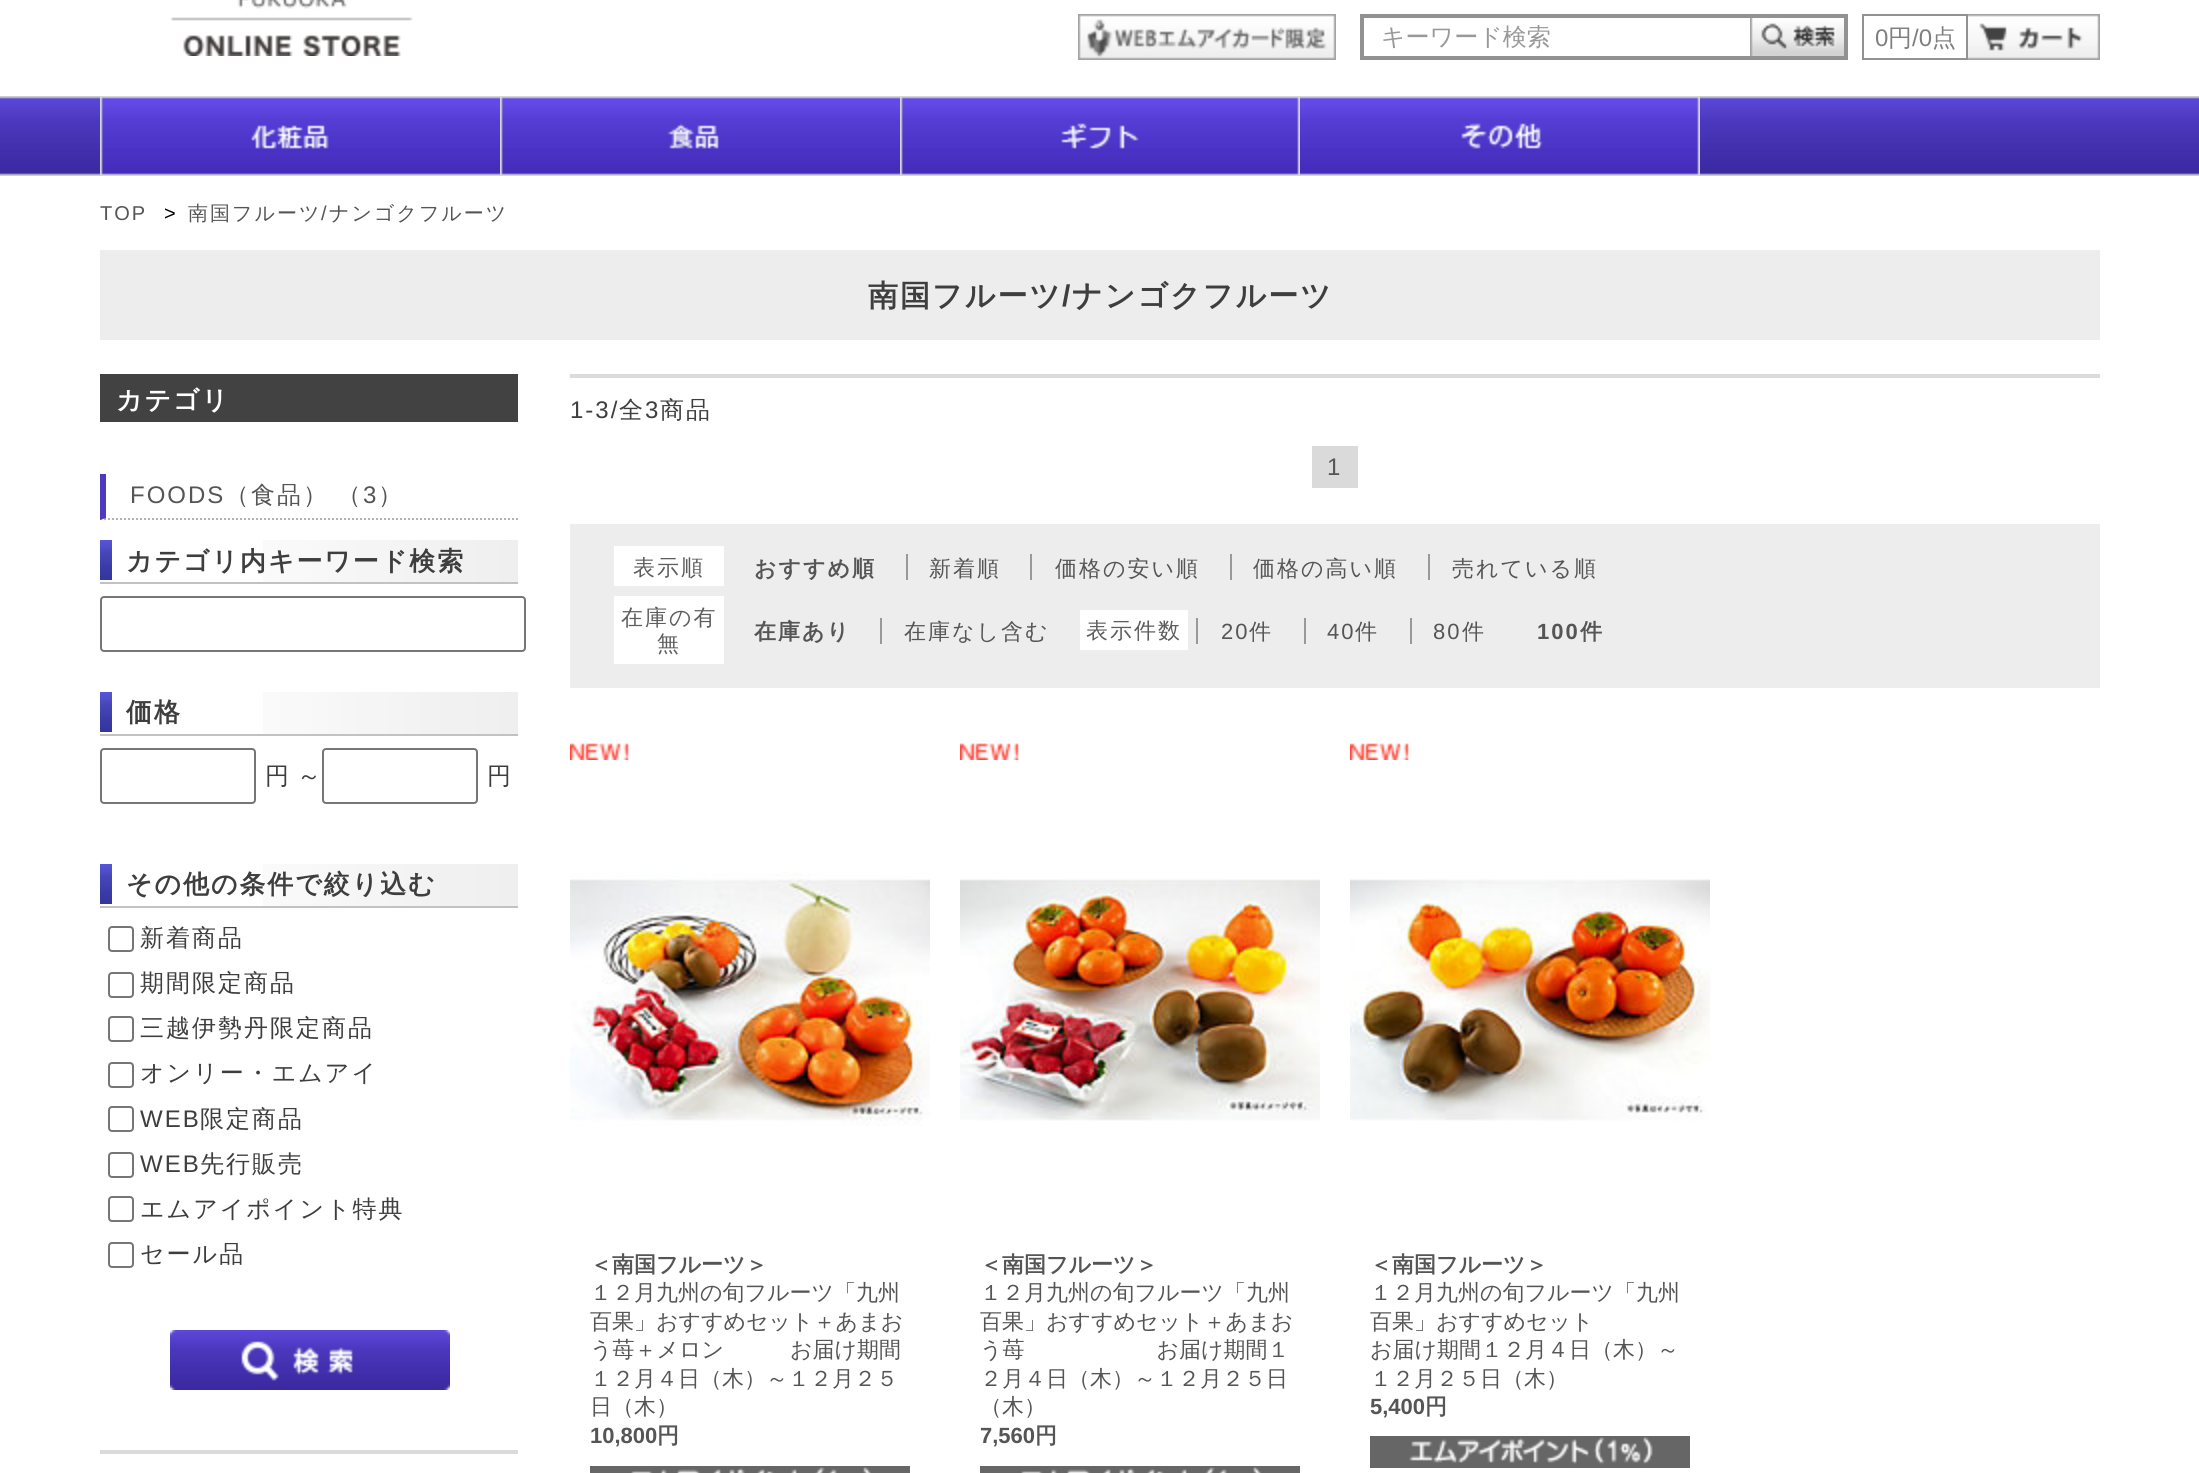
#include <cairo.h>
#include <math.h>
#include <stddef.h>

static cairo_t *ctx;

static void use_color(int r, int g, int b) {
    cairo_set_source_rgb(ctx, r / 255.0, g / 255.0, b / 255.0);
}

static void spaced_text(double x, double y, const char *s, double letter, double word) {
    cairo_move_to(ctx, x, y);
    while (*s) {
        char ch[5] = {0};
        int n = 0;
        do ch[n++] = *s++; while ((*s & 0xC0) == 0x80);
        cairo_show_text(ctx, ch);
        cairo_rel_move_to(ctx, letter + word * (*ch == ' '), 0);
    }
}

static void round_rect(double x, double y, double w, double h, double r) {
    cairo_new_sub_path(ctx);
    cairo_arc(ctx, x + w - r, y + h - r, r, 0, M_PI / 2);
    cairo_arc(ctx, x + r, y + h - r, r, M_PI / 2, M_PI);
    cairo_arc(ctx, x + r, y + r, r, M_PI, 1.5 * M_PI);
    cairo_arc(ctx, x + w - r, y + r, r, 1.5 * M_PI, 2 * M_PI);
    cairo_close_path(ctx);
}

static void picture(const char *path, double x, double y, double w, double h) {
    cairo_surface_t *image = cairo_image_surface_create_from_png(path);
    cairo_save(ctx);
    cairo_set_source_surface(ctx, image, x, y);
    cairo_rectangle(ctx, x, y, w, h);
    cairo_fill(ctx);
    cairo_restore(ctx);
    cairo_surface_destroy(image);
}

int main(void) {
    cairo_surface_t *surface = cairo_image_surface_create(CAIRO_FORMAT_RGB24, 2199, 1473);
    ctx = cairo_create(surface);
    cairo_font_options_t *options = cairo_font_options_create();
    cairo_font_options_set_hint_metrics(options, CAIRO_HINT_METRICS_OFF);
    cairo_font_options_set_hint_style(options, CAIRO_HINT_STYLE_NONE);
    cairo_set_font_options(ctx, options);
    cairo_set_miter_limit(ctx, 4);
    use_color(255, 255, 255);
    cairo_paint(ctx);
    picture("img1.png", 170, 0, 243, 56);
    picture("img2.png", 1078, 14, 258, 46);
    cairo_rectangle(ctx, 1362, 16, 484, 42);
    use_color(146, 146, 146);
    cairo_set_line_width(ctx, 4);
    cairo_stroke(ctx);
    cairo_select_font_face(ctx, "WenQuanYi Zen Hei Medium", CAIRO_FONT_SLANT_NORMAL, CAIRO_FONT_WEIGHT_NORMAL);
    cairo_set_font_size(ctx, 24);
    use_color(153, 153, 153);
    cairo_move_to(ctx, 1381, 45);
    cairo_show_text(ctx, "キーワード検索");
    picture("img3.png", 1750, 18, 94, 38);
    cairo_rectangle(ctx, 1863, 15, 104, 44);
    use_color(146, 146, 146);
    cairo_set_line_width(ctx, 2);
    cairo_stroke(ctx);
    cairo_select_font_face(ctx, "Liberation Sans", CAIRO_FONT_SLANT_NORMAL, CAIRO_FONT_WEIGHT_NORMAL);
    use_color(127, 127, 127);
    cairo_move_to(ctx, 1875, 46);
    cairo_show_text(ctx, "0");
    cairo_select_font_face(ctx, "WenQuanYi Zen Hei Medium", CAIRO_FONT_SLANT_NORMAL, CAIRO_FONT_WEIGHT_NORMAL);
    cairo_move_to(ctx, 1888, 46);
    cairo_show_text(ctx, "円");
    cairo_select_font_face(ctx, "Liberation Sans", CAIRO_FONT_SLANT_NORMAL, CAIRO_FONT_WEIGHT_NORMAL);
    cairo_move_to(ctx, 1912, 46);
    cairo_show_text(ctx, "/0");
    cairo_select_font_face(ctx, "WenQuanYi Zen Hei Medium", CAIRO_FONT_SLANT_NORMAL, CAIRO_FONT_WEIGHT_NORMAL);
    cairo_move_to(ctx, 1932, 46);
    cairo_show_text(ctx, "点");
    picture("img4.png", 1968, 14, 132, 46);
    picture("img5.png", 0, 96, 2199, 80);
    picture("img6.png", 100, 96, 400, 80);
    picture("img7.png", 500, 96, 400, 80);
    picture("img8.png", 900, 96, 400, 80);
    picture("img9.png", 1300, 96, 400, 80);
    cairo_select_font_face(ctx, "Liberation Sans", CAIRO_FONT_SLANT_NORMAL, CAIRO_FONT_WEIGHT_NORMAL);
    cairo_set_font_size(ctx, 20);
    use_color(85, 85, 85);
    spaced_text(100, 220, "TOP", 2, 0);
    use_color(0, 0, 0);
    spaced_text(164, 220, ">", 2, 0);
    cairo_select_font_face(ctx, "WenQuanYi Zen Hei Medium", CAIRO_FONT_SLANT_NORMAL, CAIRO_FONT_WEIGHT_NORMAL);
    use_color(85, 85, 85);
    spaced_text(188, 220, "南国フルーツ", 2, 0);
    cairo_select_font_face(ctx, "Liberation Sans", CAIRO_FONT_SLANT_NORMAL, CAIRO_FONT_WEIGHT_NORMAL);
    spaced_text(321, 220, "/", 2, 0);
    cairo_select_font_face(ctx, "WenQuanYi Zen Hei Medium", CAIRO_FONT_SLANT_NORMAL, CAIRO_FONT_WEIGHT_NORMAL);
    spaced_text(329, 220, "ナンゴクフルーツ", 2, 0);
    use_color(237, 237, 237);
    cairo_rectangle(ctx, 100, 250, 2000, 90);
    cairo_fill(ctx);
    cairo_select_font_face(ctx, "WenQuanYi Zen Hei", CAIRO_FONT_SLANT_NORMAL, CAIRO_FONT_WEIGHT_BOLD);
    cairo_set_font_size(ctx, 30);
    use_color(62, 62, 62);
    spaced_text(868, 306, "南国フルーツ", 2, 0);
    cairo_select_font_face(ctx, "Liberation Sans", CAIRO_FONT_SLANT_NORMAL, CAIRO_FONT_WEIGHT_BOLD);
    spaced_text(1062, 306, "/", 2, 0);
    cairo_select_font_face(ctx, "WenQuanYi Zen Hei", CAIRO_FONT_SLANT_NORMAL, CAIRO_FONT_WEIGHT_BOLD);
    spaced_text(1072, 306, "ナンゴクフルーツ", 2, 0);
    use_color(66, 66, 66);
    cairo_rectangle(ctx, 100, 374, 418, 48);
    cairo_fill(ctx);
    cairo_set_font_size(ctx, 25.9);
    use_color(255, 255, 255);
    spaced_text(116, 409, "カテゴリ", 2, 0);
    use_color(219, 219, 219);
    cairo_rectangle(ctx, 570, 374, 1530, 4);
    cairo_fill(ctx);
    cairo_select_font_face(ctx, "Liberation Sans", CAIRO_FONT_SLANT_NORMAL, CAIRO_FONT_WEIGHT_NORMAL);
    cairo_set_font_size(ctx, 24);
    use_color(62, 62, 62);
    spaced_text(570, 418, "1-3/", 2, 0);
    cairo_select_font_face(ctx, "WenQuanYi Zen Hei Medium", CAIRO_FONT_SLANT_NORMAL, CAIRO_FONT_WEIGHT_NORMAL);
    spaced_text(619, 418, "全", 2, 0);
    cairo_select_font_face(ctx, "Liberation Sans", CAIRO_FONT_SLANT_NORMAL, CAIRO_FONT_WEIGHT_NORMAL);
    spaced_text(645, 418, "3", 2, 0);
    cairo_select_font_face(ctx, "WenQuanYi Zen Hei Medium", CAIRO_FONT_SLANT_NORMAL, CAIRO_FONT_WEIGHT_NORMAL);
    spaced_text(660, 418, "商品", 2, 0);
    use_color(218, 218, 218);
    cairo_rectangle(ctx, 1312, 446, 46, 42);
    cairo_fill(ctx);
    cairo_select_font_face(ctx, "Liberation Sans", CAIRO_FONT_SLANT_NORMAL, CAIRO_FONT_WEIGHT_NORMAL);
    use_color(85, 85, 85);
    spaced_text(1327, 475, "1", 2, 0);
    use_color(237, 237, 237);
    cairo_rectangle(ctx, 570, 524, 1530, 164);
    cairo_fill(ctx);
    use_color(255, 255, 255);
    cairo_rectangle(ctx, 614, 546, 110, 40);
    cairo_fill(ctx);
    cairo_select_font_face(ctx, "WenQuanYi Zen Hei Medium", CAIRO_FONT_SLANT_NORMAL, CAIRO_FONT_WEIGHT_NORMAL);
    cairo_set_font_size(ctx, 22);
    use_color(93, 93, 93);
    spaced_text(633, 575, "表示順", 2, 0);
    cairo_select_font_face(ctx, "WenQuanYi Zen Hei", CAIRO_FONT_SLANT_NORMAL, CAIRO_FONT_WEIGHT_BOLD);
    use_color(85, 85, 85);
    spaced_text(754, 576, "おすすめ順", 2, 0);
    use_color(153, 153, 153);
    cairo_rectangle(ctx, 906, 554, 2, 26);
    cairo_fill(ctx);
    cairo_select_font_face(ctx, "WenQuanYi Zen Hei Medium", CAIRO_FONT_SLANT_NORMAL, CAIRO_FONT_WEIGHT_NORMAL);
    use_color(85, 85, 85);
    spaced_text(929, 576, "新着順", 2, 0);
    use_color(153, 153, 153);
    cairo_rectangle(ctx, 1030, 554, 2, 26);
    cairo_fill(ctx);
    use_color(85, 85, 85);
    spaced_text(1055, 576, "価格の安い順", 2, 0);
    use_color(153, 153, 153);
    cairo_rectangle(ctx, 1230, 554, 2, 26);
    cairo_fill(ctx);
    use_color(85, 85, 85);
    spaced_text(1253, 576, "価格の高い順", 2, 0);
    use_color(153, 153, 153);
    cairo_rectangle(ctx, 1428, 554, 2, 26);
    cairo_fill(ctx);
    use_color(85, 85, 85);
    spaced_text(1452, 576, "売れている順", 2, 0);
    use_color(255, 255, 255);
    cairo_rectangle(ctx, 614, 596, 110, 68);
    cairo_fill(ctx);
    use_color(93, 93, 93);
    spaced_text(621, 625, "在庫の有", 2, 0);
    spaced_text(657, 651, "無", 2, 0);
    cairo_select_font_face(ctx, "WenQuanYi Zen Hei", CAIRO_FONT_SLANT_NORMAL, CAIRO_FONT_WEIGHT_BOLD);
    use_color(85, 85, 85);
    spaced_text(754, 639, "在庫あり", 2, 0);
    use_color(153, 153, 153);
    cairo_rectangle(ctx, 880, 618, 2, 26);
    cairo_fill(ctx);
    cairo_select_font_face(ctx, "WenQuanYi Zen Hei Medium", CAIRO_FONT_SLANT_NORMAL, CAIRO_FONT_WEIGHT_NORMAL);
    use_color(85, 85, 85);
    spaced_text(904, 639, "在庫なし含む", 2, 0);
    use_color(255, 255, 255);
    cairo_rectangle(ctx, 1080, 610, 108, 40);
    cairo_fill(ctx);
    use_color(93, 93, 93);
    spaced_text(1086, 638, "表示件数", 2, 0);
    use_color(153, 153, 153);
    cairo_rectangle(ctx, 1196, 618, 2, 26);
    cairo_fill(ctx);
    cairo_select_font_face(ctx, "Liberation Sans", CAIRO_FONT_SLANT_NORMAL, CAIRO_FONT_WEIGHT_NORMAL);
    use_color(85, 85, 85);
    spaced_text(1221, 639, "20", 2, 0);
    cairo_select_font_face(ctx, "WenQuanYi Zen Hei Medium", CAIRO_FONT_SLANT_NORMAL, CAIRO_FONT_WEIGHT_NORMAL);
    spaced_text(1249, 639, "件", 2, 0);
    use_color(153, 153, 153);
    cairo_rectangle(ctx, 1304, 618, 2, 26);
    cairo_fill(ctx);
    cairo_select_font_face(ctx, "Liberation Sans", CAIRO_FONT_SLANT_NORMAL, CAIRO_FONT_WEIGHT_NORMAL);
    use_color(85, 85, 85);
    spaced_text(1327, 639, "40", 2, 0);
    cairo_select_font_face(ctx, "WenQuanYi Zen Hei Medium", CAIRO_FONT_SLANT_NORMAL, CAIRO_FONT_WEIGHT_NORMAL);
    spaced_text(1355, 639, "件", 2, 0);
    use_color(153, 153, 153);
    cairo_rectangle(ctx, 1410, 618, 2, 26);
    cairo_fill(ctx);
    cairo_select_font_face(ctx, "Liberation Sans", CAIRO_FONT_SLANT_NORMAL, CAIRO_FONT_WEIGHT_NORMAL);
    use_color(85, 85, 85);
    spaced_text(1433, 639, "80", 2, 0);
    cairo_select_font_face(ctx, "WenQuanYi Zen Hei Medium", CAIRO_FONT_SLANT_NORMAL, CAIRO_FONT_WEIGHT_NORMAL);
    spaced_text(1462, 639, "件", 2, 0);
    cairo_select_font_face(ctx, "Liberation Sans", CAIRO_FONT_SLANT_NORMAL, CAIRO_FONT_WEIGHT_BOLD);
    spaced_text(1537, 639, "100", 2, 0);
    cairo_select_font_face(ctx, "WenQuanYi Zen Hei", CAIRO_FONT_SLANT_NORMAL, CAIRO_FONT_WEIGHT_BOLD);
    spaced_text(1580, 639, "件", 2, 0);
    picture("img10.png", 570, 742, 59, 18);
    picture("img11.png", 570, 872, 360, 254);
    cairo_move_to(ctx, 590, 1272);
    cairo_show_text(ctx, "＜南国フルーツ＞");
    cairo_select_font_face(ctx, "WenQuanYi Zen Hei Medium", CAIRO_FONT_SLANT_NORMAL, CAIRO_FONT_WEIGHT_NORMAL);
    cairo_move_to(ctx, 590, 1300);
    cairo_show_text(ctx, "１２月九州の旬フルーツ「九州");
    cairo_move_to(ctx, 590, 1329);
    cairo_show_text(ctx, "百果」おすすめセット＋あまお");
    cairo_move_to(ctx, 590, 1357);
    cairo_show_text(ctx, "う苺＋メロン　　　お届け期間");
    cairo_move_to(ctx, 590, 1386);
    cairo_show_text(ctx, "１２月４日（木）～１２月２５");
    cairo_move_to(ctx, 590, 1414);
    cairo_show_text(ctx, "日（木）");
    cairo_select_font_face(ctx, "Liberation Sans", CAIRO_FONT_SLANT_NORMAL, CAIRO_FONT_WEIGHT_BOLD);
    cairo_move_to(ctx, 590, 1443);
    cairo_show_text(ctx, "10,800");
    cairo_select_font_face(ctx, "WenQuanYi Zen Hei", CAIRO_FONT_SLANT_NORMAL, CAIRO_FONT_WEIGHT_BOLD);
    cairo_move_to(ctx, 657, 1443);
    cairo_show_text(ctx, "円");
    picture("img12.png", 590, 1466, 320, 7);
    picture("img10.png", 960, 742, 59, 18);
    picture("img13.png", 960, 879, 360, 242);
    cairo_move_to(ctx, 980, 1272);
    cairo_show_text(ctx, "＜南国フルーツ＞");
    cairo_select_font_face(ctx, "WenQuanYi Zen Hei Medium", CAIRO_FONT_SLANT_NORMAL, CAIRO_FONT_WEIGHT_NORMAL);
    cairo_move_to(ctx, 980, 1300);
    cairo_show_text(ctx, "１２月九州の旬フルーツ「九州");
    cairo_move_to(ctx, 980, 1329);
    cairo_show_text(ctx, "百果」おすすめセット＋あまお");
    cairo_move_to(ctx, 980, 1357);
    cairo_show_text(ctx, "う苺　　　　　　お届け期間１");
    cairo_move_to(ctx, 980, 1386);
    cairo_show_text(ctx, "２月４日（木）～１２月２５日");
    cairo_move_to(ctx, 980, 1414);
    cairo_show_text(ctx, "（木）");
    cairo_select_font_face(ctx, "Liberation Sans", CAIRO_FONT_SLANT_NORMAL, CAIRO_FONT_WEIGHT_BOLD);
    cairo_move_to(ctx, 980, 1443);
    cairo_show_text(ctx, "7,560");
    cairo_select_font_face(ctx, "WenQuanYi Zen Hei", CAIRO_FONT_SLANT_NORMAL, CAIRO_FONT_WEIGHT_BOLD);
    cairo_move_to(ctx, 1035, 1443);
    cairo_show_text(ctx, "円");
    picture("img12.png", 980, 1466, 320, 7);
    picture("img10.png", 1350, 742, 59, 18);
    picture("img14.png", 1350, 879, 360, 242);
    cairo_move_to(ctx, 1370, 1272);
    cairo_show_text(ctx, "＜南国フルーツ＞");
    cairo_select_font_face(ctx, "WenQuanYi Zen Hei Medium", CAIRO_FONT_SLANT_NORMAL, CAIRO_FONT_WEIGHT_NORMAL);
    cairo_move_to(ctx, 1370, 1300);
    cairo_show_text(ctx, "１２月九州の旬フルーツ「九州");
    cairo_move_to(ctx, 1370, 1329);
    cairo_show_text(ctx, "百果」おすすめセット");
    cairo_move_to(ctx, 1370, 1357);
    cairo_show_text(ctx, "お届け期間１２月４日（木）～");
    cairo_move_to(ctx, 1370, 1386);
    cairo_show_text(ctx, "１２月２５日（木）");
    cairo_select_font_face(ctx, "Liberation Sans", CAIRO_FONT_SLANT_NORMAL, CAIRO_FONT_WEIGHT_BOLD);
    cairo_move_to(ctx, 1370, 1414);
    cairo_show_text(ctx, "5,400");
    cairo_select_font_face(ctx, "WenQuanYi Zen Hei", CAIRO_FONT_SLANT_NORMAL, CAIRO_FONT_WEIGHT_BOLD);
    cairo_move_to(ctx, 1425, 1414);
    cairo_show_text(ctx, "円");
    picture("img15.png", 1370, 1436, 320, 32);
    use_color(219, 219, 219);
    cairo_rectangle(ctx, 100, 1450, 418, 4);
    cairo_fill(ctx);
    cairo_new_path(ctx);
    cairo_move_to(ctx, 100, 519);
    cairo_line_to(ctx, 518, 519);
    use_color(179, 179, 179);
    cairo_set_dash(ctx, (double[]){2, 2}, 2, 0);
    cairo_stroke(ctx);
    use_color(77, 58, 193);
    cairo_new_path(ctx);
    cairo_move_to(ctx, 100, 520);
    cairo_line_to(ctx, 100, 474);
    cairo_line_to(ctx, 106, 474);
    cairo_line_to(ctx, 106, 518);
    cairo_close_path(ctx);
    cairo_fill(ctx);
    cairo_select_font_face(ctx, "Liberation Sans", CAIRO_FONT_SLANT_NORMAL, CAIRO_FONT_WEIGHT_NORMAL);
    cairo_set_font_size(ctx, 24);
    use_color(85, 85, 85);
    spaced_text(130, 503, "FOODS", 2, 0);
    cairo_select_font_face(ctx, "WenQuanYi Zen Hei Medium", CAIRO_FONT_SLANT_NORMAL, CAIRO_FONT_WEIGHT_NORMAL);
    spaced_text(225, 503, "（食品）", 2, 0);
    spaced_text(337, 503, "（", 2, 0);
    cairo_select_font_face(ctx, "Liberation Sans", CAIRO_FONT_SLANT_NORMAL, CAIRO_FONT_WEIGHT_NORMAL);
    spaced_text(363, 503, "3", 2, 0);
    cairo_select_font_face(ctx, "WenQuanYi Zen Hei Medium", CAIRO_FONT_SLANT_NORMAL, CAIRO_FONT_WEIGHT_NORMAL);
    spaced_text(378, 503, "）", 2, 0);
    picture("img16.png", 263, 540, 255, 42);
    use_color(194, 194, 194);
    cairo_rectangle(ctx, 100, 582, 418, 2);
    cairo_fill(ctx);
    picture("img17.png", 100, 540, 12, 40);
    cairo_select_font_face(ctx, "WenQuanYi Zen Hei", CAIRO_FONT_SLANT_NORMAL, CAIRO_FONT_WEIGHT_BOLD);
    cairo_set_font_size(ctx, 25.9);
    use_color(62, 62, 62);
    spaced_text(126, 570, "カテゴリ内キーワード検索", 2, 0);
    round_rect(101, 597, 424, 54, 3);
    use_color(118, 118, 118);
    cairo_set_dash(ctx, NULL, 0, 0);
    cairo_stroke(ctx);
    picture("img16.png", 263, 692, 255, 42);
    use_color(194, 194, 194);
    cairo_rectangle(ctx, 100, 734, 418, 2);
    cairo_fill(ctx);
    picture("img17.png", 100, 692, 12, 40);
    use_color(62, 62, 62);
    spaced_text(126, 721, "価格", 2, 0);
    round_rect(101, 749, 154, 54, 3);
    use_color(118, 118, 118);
    cairo_stroke(ctx);
    cairo_select_font_face(ctx, "WenQuanYi Zen Hei Medium", CAIRO_FONT_SLANT_NORMAL, CAIRO_FONT_WEIGHT_NORMAL);
    cairo_set_font_size(ctx, 24);
    use_color(62, 62, 62);
    spaced_text(265, 784, "円", 2, 0);
    spaced_text(297, 784, "～", 2, 0);
    round_rect(323, 749, 154, 54, 3);
    use_color(118, 118, 118);
    cairo_stroke(ctx);
    use_color(62, 62, 62);
    spaced_text(487, 784, "円", 2, 0);
    picture("img16.png", 263, 864, 255, 42);
    use_color(194, 194, 194);
    cairo_rectangle(ctx, 100, 906, 418, 2);
    cairo_fill(ctx);
    picture("img17.png", 100, 864, 12, 40);
    cairo_select_font_face(ctx, "WenQuanYi Zen Hei", CAIRO_FONT_SLANT_NORMAL, CAIRO_FONT_WEIGHT_BOLD);
    cairo_set_font_size(ctx, 25.9);
    use_color(62, 62, 62);
    spaced_text(126, 893, "その他の条件で絞り込む", 2, 0);
    round_rect(109, 927, 24, 24, 3);
    use_color(118, 118, 118);
    cairo_stroke(ctx);
    cairo_select_font_face(ctx, "WenQuanYi Zen Hei Medium", CAIRO_FONT_SLANT_NORMAL, CAIRO_FONT_WEIGHT_NORMAL);
    cairo_set_font_size(ctx, 24);
    use_color(62, 62, 62);
    spaced_text(140, 946, "新着商品", 2, 0);
    round_rect(109, 973, 24, 24, 3);
    use_color(118, 118, 118);
    cairo_stroke(ctx);
    use_color(62, 62, 62);
    spaced_text(140, 991, "期間限定商品", 2, 0);
    round_rect(109, 1017, 24, 24, 3);
    use_color(118, 118, 118);
    cairo_stroke(ctx);
    use_color(62, 62, 62);
    spaced_text(140, 1036, "三越伊勢丹限定商品", 2, 0);
    round_rect(109, 1063, 24, 24, 3);
    use_color(118, 118, 118);
    cairo_stroke(ctx);
    use_color(62, 62, 62);
    spaced_text(140, 1081, "オンリー・エムアイ", 2, 0);
    round_rect(109, 1107, 24, 24, 3);
    use_color(118, 118, 118);
    cairo_stroke(ctx);
    cairo_select_font_face(ctx, "Liberation Sans", CAIRO_FONT_SLANT_NORMAL, CAIRO_FONT_WEIGHT_NORMAL);
    use_color(62, 62, 62);
    spaced_text(140, 1127, "WEB", 2, 0);
    cairo_select_font_face(ctx, "WenQuanYi Zen Hei Medium", CAIRO_FONT_SLANT_NORMAL, CAIRO_FONT_WEIGHT_NORMAL);
    spaced_text(200, 1127, "限定商品", 2, 0);
    round_rect(109, 1153, 24, 24, 3);
    use_color(118, 118, 118);
    cairo_stroke(ctx);
    cairo_select_font_face(ctx, "Liberation Sans", CAIRO_FONT_SLANT_NORMAL, CAIRO_FONT_WEIGHT_NORMAL);
    use_color(62, 62, 62);
    spaced_text(140, 1172, "WEB", 2, 0);
    cairo_select_font_face(ctx, "WenQuanYi Zen Hei Medium", CAIRO_FONT_SLANT_NORMAL, CAIRO_FONT_WEIGHT_NORMAL);
    spaced_text(200, 1172, "先行販売", 2, 0);
    round_rect(109, 1197, 24, 24, 3);
    use_color(118, 118, 118);
    cairo_stroke(ctx);
    use_color(62, 62, 62);
    spaced_text(140, 1217, "エムアイポイント特典", 2, 0);
    round_rect(109, 1243, 24, 24, 3);
    use_color(118, 118, 118);
    cairo_stroke(ctx);
    use_color(62, 62, 62);
    spaced_text(140, 1262, "セール品", 2, 0);
    picture("img18.png", 170, 1330, 280, 60);
    cairo_surface_write_to_png(surface, "result.png");
    cairo_font_options_destroy(options);
    cairo_destroy(ctx);
    cairo_surface_destroy(surface);
    return 0;
}
